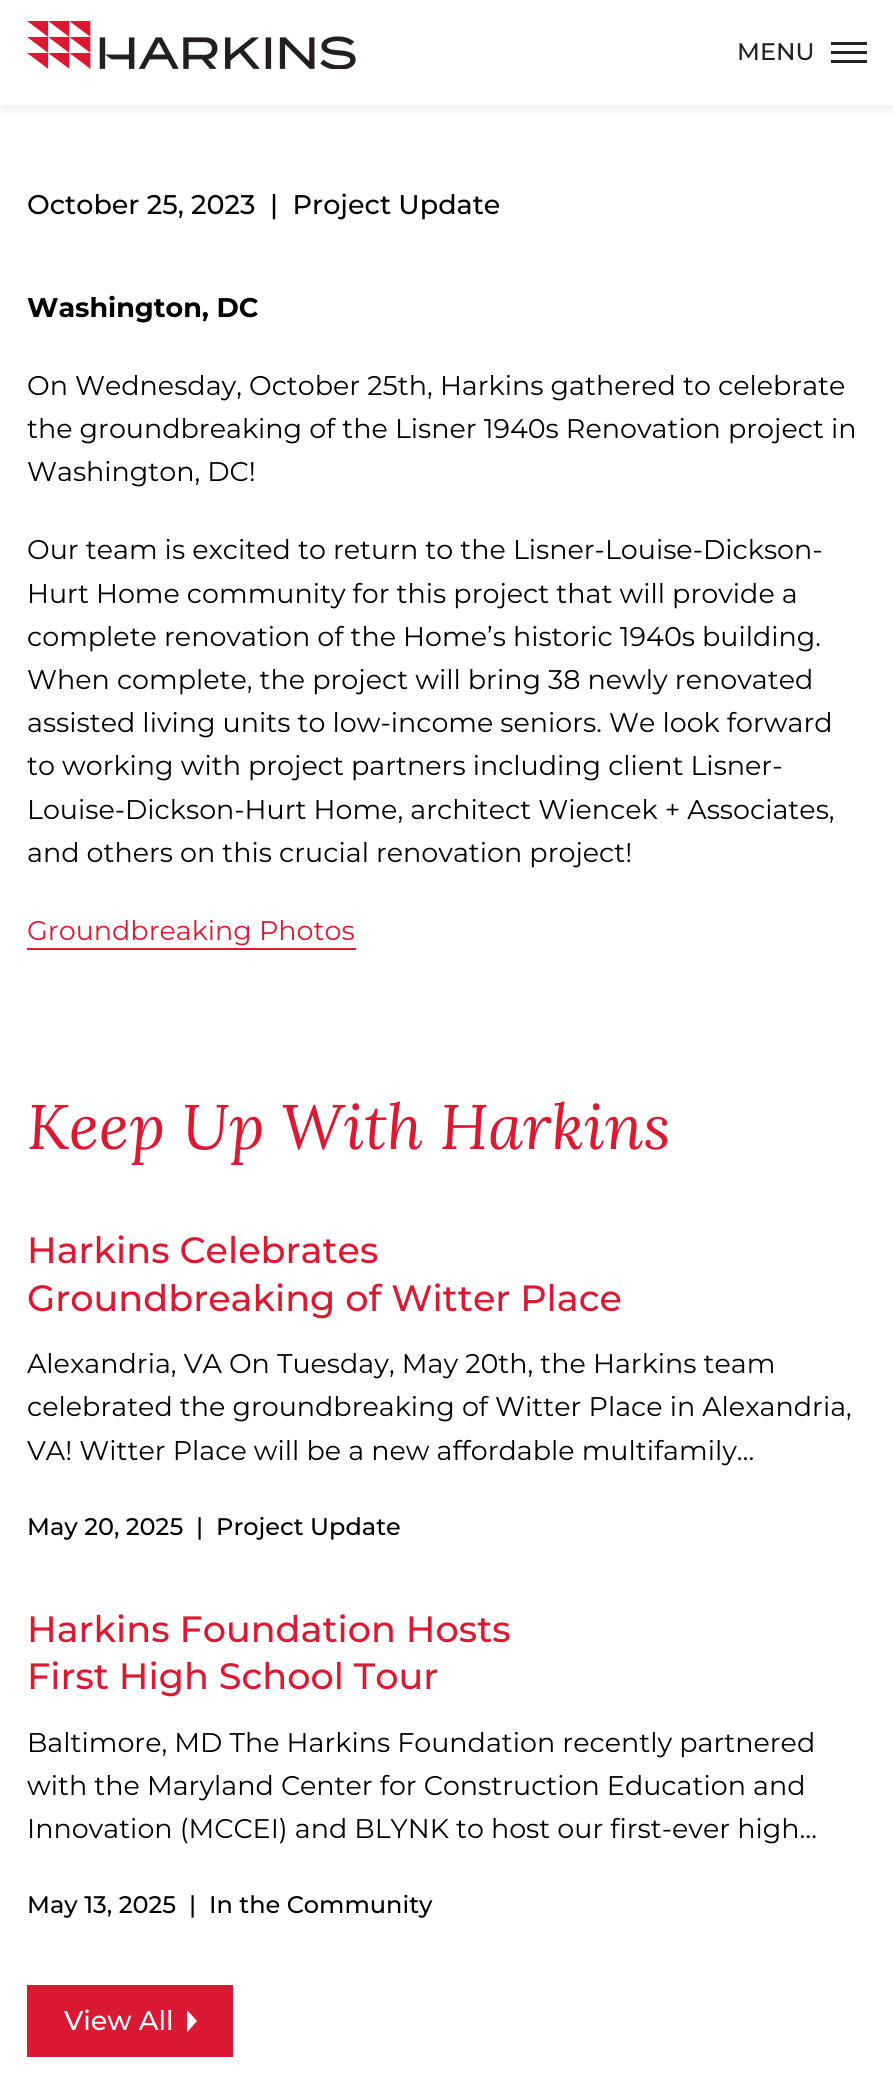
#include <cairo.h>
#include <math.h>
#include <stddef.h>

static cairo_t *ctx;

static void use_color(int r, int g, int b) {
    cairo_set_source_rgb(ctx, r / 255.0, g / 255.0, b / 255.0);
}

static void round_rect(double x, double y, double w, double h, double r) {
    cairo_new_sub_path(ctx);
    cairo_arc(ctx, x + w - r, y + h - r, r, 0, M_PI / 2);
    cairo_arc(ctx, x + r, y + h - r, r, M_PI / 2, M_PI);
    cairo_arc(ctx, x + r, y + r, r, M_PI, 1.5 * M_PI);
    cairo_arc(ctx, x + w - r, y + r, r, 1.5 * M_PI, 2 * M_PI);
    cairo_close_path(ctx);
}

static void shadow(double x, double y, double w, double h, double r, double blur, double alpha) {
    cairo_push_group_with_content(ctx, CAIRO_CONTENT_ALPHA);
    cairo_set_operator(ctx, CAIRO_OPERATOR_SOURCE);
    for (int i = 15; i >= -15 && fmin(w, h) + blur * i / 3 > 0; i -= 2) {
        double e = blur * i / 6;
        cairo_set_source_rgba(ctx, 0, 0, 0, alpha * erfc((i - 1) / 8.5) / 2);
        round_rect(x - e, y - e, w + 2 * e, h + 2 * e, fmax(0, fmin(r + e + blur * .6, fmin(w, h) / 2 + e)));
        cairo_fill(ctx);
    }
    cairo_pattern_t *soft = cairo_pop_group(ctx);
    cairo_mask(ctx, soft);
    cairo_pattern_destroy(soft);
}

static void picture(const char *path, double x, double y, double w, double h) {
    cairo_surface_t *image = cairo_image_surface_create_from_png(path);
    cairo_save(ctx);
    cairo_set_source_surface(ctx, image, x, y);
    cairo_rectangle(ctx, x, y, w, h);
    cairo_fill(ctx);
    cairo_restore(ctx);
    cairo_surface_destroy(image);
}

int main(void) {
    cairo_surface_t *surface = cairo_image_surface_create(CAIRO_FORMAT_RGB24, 893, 2097);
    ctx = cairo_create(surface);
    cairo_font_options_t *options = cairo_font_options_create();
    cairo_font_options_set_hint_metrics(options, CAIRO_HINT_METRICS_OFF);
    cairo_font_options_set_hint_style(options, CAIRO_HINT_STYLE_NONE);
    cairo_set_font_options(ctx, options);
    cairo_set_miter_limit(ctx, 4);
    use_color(255, 255, 255);
    cairo_paint(ctx);
    use_color(0, 0, 0);
    shadow(0, 0, 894, 105, 0, 7.5, 0.1);
    use_color(255, 255, 255);
    cairo_rectangle(ctx, 0, 0, 893, 105);
    cairo_fill(ctx);
    picture("img1.png", 27, 21, 329, 48);
    cairo_select_font_face(ctx, "Montserrat Thin", CAIRO_FONT_SLANT_NORMAL, CAIRO_FONT_WEIGHT_NORMAL);
    cairo_set_font_size(ctx, 24);
    use_color(34, 34, 34);
    cairo_move_to(ctx, 737, 60);
    cairo_show_text(ctx, "MENU");
    cairo_set_fill_rule(ctx, CAIRO_FILL_RULE_EVEN_ODD);
    cairo_new_path(ctx);
    cairo_move_to(ctx, 831, 42);
    cairo_line_to(ctx, 867, 42);
    cairo_line_to(ctx, 867, 45);
    cairo_line_to(ctx, 831, 45);
    cairo_close_path(ctx);
    cairo_move_to(ctx, 831, 51);
    cairo_line_to(ctx, 867, 51);
    cairo_line_to(ctx, 867, 54);
    cairo_line_to(ctx, 831, 54);
    cairo_close_path(ctx);
    cairo_move_to(ctx, 831, 60);
    cairo_line_to(ctx, 867, 60);
    cairo_line_to(ctx, 867, 63);
    cairo_line_to(ctx, 831, 63);
    cairo_close_path(ctx);
    cairo_fill(ctx);
    cairo_set_font_size(ctx, 27);
    use_color(0, 0, 0);
    cairo_move_to(ctx, 27, 214);
    cairo_show_text(ctx, "October 25, 2023");
    cairo_move_to(ctx, 270, 214);
    cairo_show_text(ctx, "|  Project Update");
    cairo_select_font_face(ctx, "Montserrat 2 Thin", CAIRO_FONT_SLANT_NORMAL, CAIRO_FONT_WEIGHT_NORMAL);
    cairo_move_to(ctx, 27, 317);
    cairo_show_text(ctx, "Washington, DC");
    cairo_select_font_face(ctx, "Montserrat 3 Thin", CAIRO_FONT_SLANT_NORMAL, CAIRO_FONT_WEIGHT_NORMAL);
    cairo_move_to(ctx, 27, 395);
    cairo_show_text(ctx, "On Wednesday, October 25th, Harkins gathered to celebrate");
    cairo_move_to(ctx, 27, 438);
    cairo_show_text(ctx, "the groundbreaking of the Lisner 1940s Renovation project in");
    cairo_move_to(ctx, 27, 481);
    cairo_show_text(ctx, "Washington, DC!");
    cairo_move_to(ctx, 27, 559);
    cairo_show_text(ctx, "Our team is excited to return to the Lisner-Louise-Dickson-");
    cairo_move_to(ctx, 27, 603);
    cairo_show_text(ctx, "Hurt Home community for this project that will provide a");
    cairo_move_to(ctx, 27, 646);
    cairo_show_text(ctx, "complete renovation of the Home’s historic 1940s building.");
    cairo_move_to(ctx, 27, 689);
    cairo_show_text(ctx, "When complete, the project will bring 38 newly renovated");
    cairo_move_to(ctx, 27, 732);
    cairo_show_text(ctx, "assisted living units to low-income seniors. We look forward");
    cairo_move_to(ctx, 27, 775);
    cairo_show_text(ctx, "to working with project partners including client Lisner-");
    cairo_move_to(ctx, 27, 819);
    cairo_show_text(ctx, "Louise-Dickson-Hurt Home, architect Wiencek + Associates,");
    cairo_move_to(ctx, 27, 862);
    cairo_show_text(ctx, "and others on this crucial renovation project!");
    use_color(218, 26, 50);
    cairo_move_to(ctx, 27, 940);
    cairo_show_text(ctx, "Groundbreaking Photos");
    cairo_rectangle(ctx, 27, 948, 329, 2);
    cairo_fill(ctx);
    cairo_select_font_face(ctx, "Lora", CAIRO_FONT_SLANT_ITALIC, CAIRO_FONT_WEIGHT_NORMAL);
    cairo_set_font_size(ctx, 63);
    cairo_move_to(ctx, 27, 1149);
    cairo_show_text(ctx, "Keep Up With Harkins");
    cairo_select_font_face(ctx, "Montserrat Thin", CAIRO_FONT_SLANT_NORMAL, CAIRO_FONT_WEIGHT_NORMAL);
    cairo_set_font_size(ctx, 36.6);
    cairo_move_to(ctx, 27, 1263);
    cairo_show_text(ctx, "Harkins Celebrates");
    cairo_move_to(ctx, 27, 1311);
    cairo_show_text(ctx, "Groundbreaking of Witter Place");
    cairo_select_font_face(ctx, "Montserrat 3 Thin", CAIRO_FONT_SLANT_NORMAL, CAIRO_FONT_WEIGHT_NORMAL);
    cairo_set_font_size(ctx, 27);
    use_color(0, 0, 0);
    cairo_move_to(ctx, 27, 1373);
    cairo_show_text(ctx, "Alexandria, VA On Tuesday, May 20th, the Harkins team");
    cairo_move_to(ctx, 27, 1416);
    cairo_show_text(ctx, "celebrated the groundbreaking of Witter Place in Alexandria,");
    cairo_move_to(ctx, 27, 1460);
    cairo_show_text(ctx, "VA! Witter Place will be a new affordable multifamily…");
    cairo_select_font_face(ctx, "Montserrat Thin", CAIRO_FONT_SLANT_NORMAL, CAIRO_FONT_WEIGHT_NORMAL);
    cairo_set_font_size(ctx, 24);
    cairo_move_to(ctx, 27, 1535);
    cairo_show_text(ctx, "May 20, 2025");
    cairo_move_to(ctx, 196, 1535);
    cairo_show_text(ctx, "|  Project Update");
    cairo_set_font_size(ctx, 36.6);
    use_color(218, 26, 50);
    cairo_move_to(ctx, 27, 1642);
    cairo_show_text(ctx, "Harkins Foundation Hosts");
    cairo_move_to(ctx, 27, 1689);
    cairo_show_text(ctx, "First High School Tour");
    cairo_select_font_face(ctx, "Montserrat 3 Thin", CAIRO_FONT_SLANT_NORMAL, CAIRO_FONT_WEIGHT_NORMAL);
    cairo_set_font_size(ctx, 27);
    use_color(0, 0, 0);
    cairo_move_to(ctx, 27, 1752);
    cairo_show_text(ctx, "Baltimore, MD The Harkins Foundation recently partnered");
    cairo_move_to(ctx, 27, 1795);
    cairo_show_text(ctx, "with the Maryland Center for Construction Education and");
    cairo_move_to(ctx, 27, 1838);
    cairo_show_text(ctx, "Innovation (MCCEI) and BLYNK to host our first-ever high…");
    cairo_select_font_face(ctx, "Montserrat Thin", CAIRO_FONT_SLANT_NORMAL, CAIRO_FONT_WEIGHT_NORMAL);
    cairo_set_font_size(ctx, 24);
    cairo_move_to(ctx, 27, 1913);
    cairo_show_text(ctx, "May 13, 2025");
    cairo_move_to(ctx, 189, 1913);
    cairo_show_text(ctx, "|  In the Community");
    use_color(218, 26, 50);
    cairo_rectangle(ctx, 27, 1985, 206, 72);
    cairo_fill(ctx);
    cairo_set_font_size(ctx, 27);
    use_color(255, 255, 255);
    cairo_move_to(ctx, 64, 2030);
    cairo_show_text(ctx, "View All");
    cairo_set_fill_rule(ctx, CAIRO_FILL_RULE_WINDING);
    cairo_new_path(ctx);
    cairo_move_to(ctx, 187, 2032.5);
    cairo_line_to(ctx, 187, 2010);
    cairo_line_to(ctx, 197, 2021);
    cairo_close_path(ctx);
    cairo_fill(ctx);
    cairo_surface_write_to_png(surface, "result.png");
    cairo_font_options_destroy(options);
    cairo_destroy(ctx);
    cairo_surface_destroy(surface);
    return 0;
}
